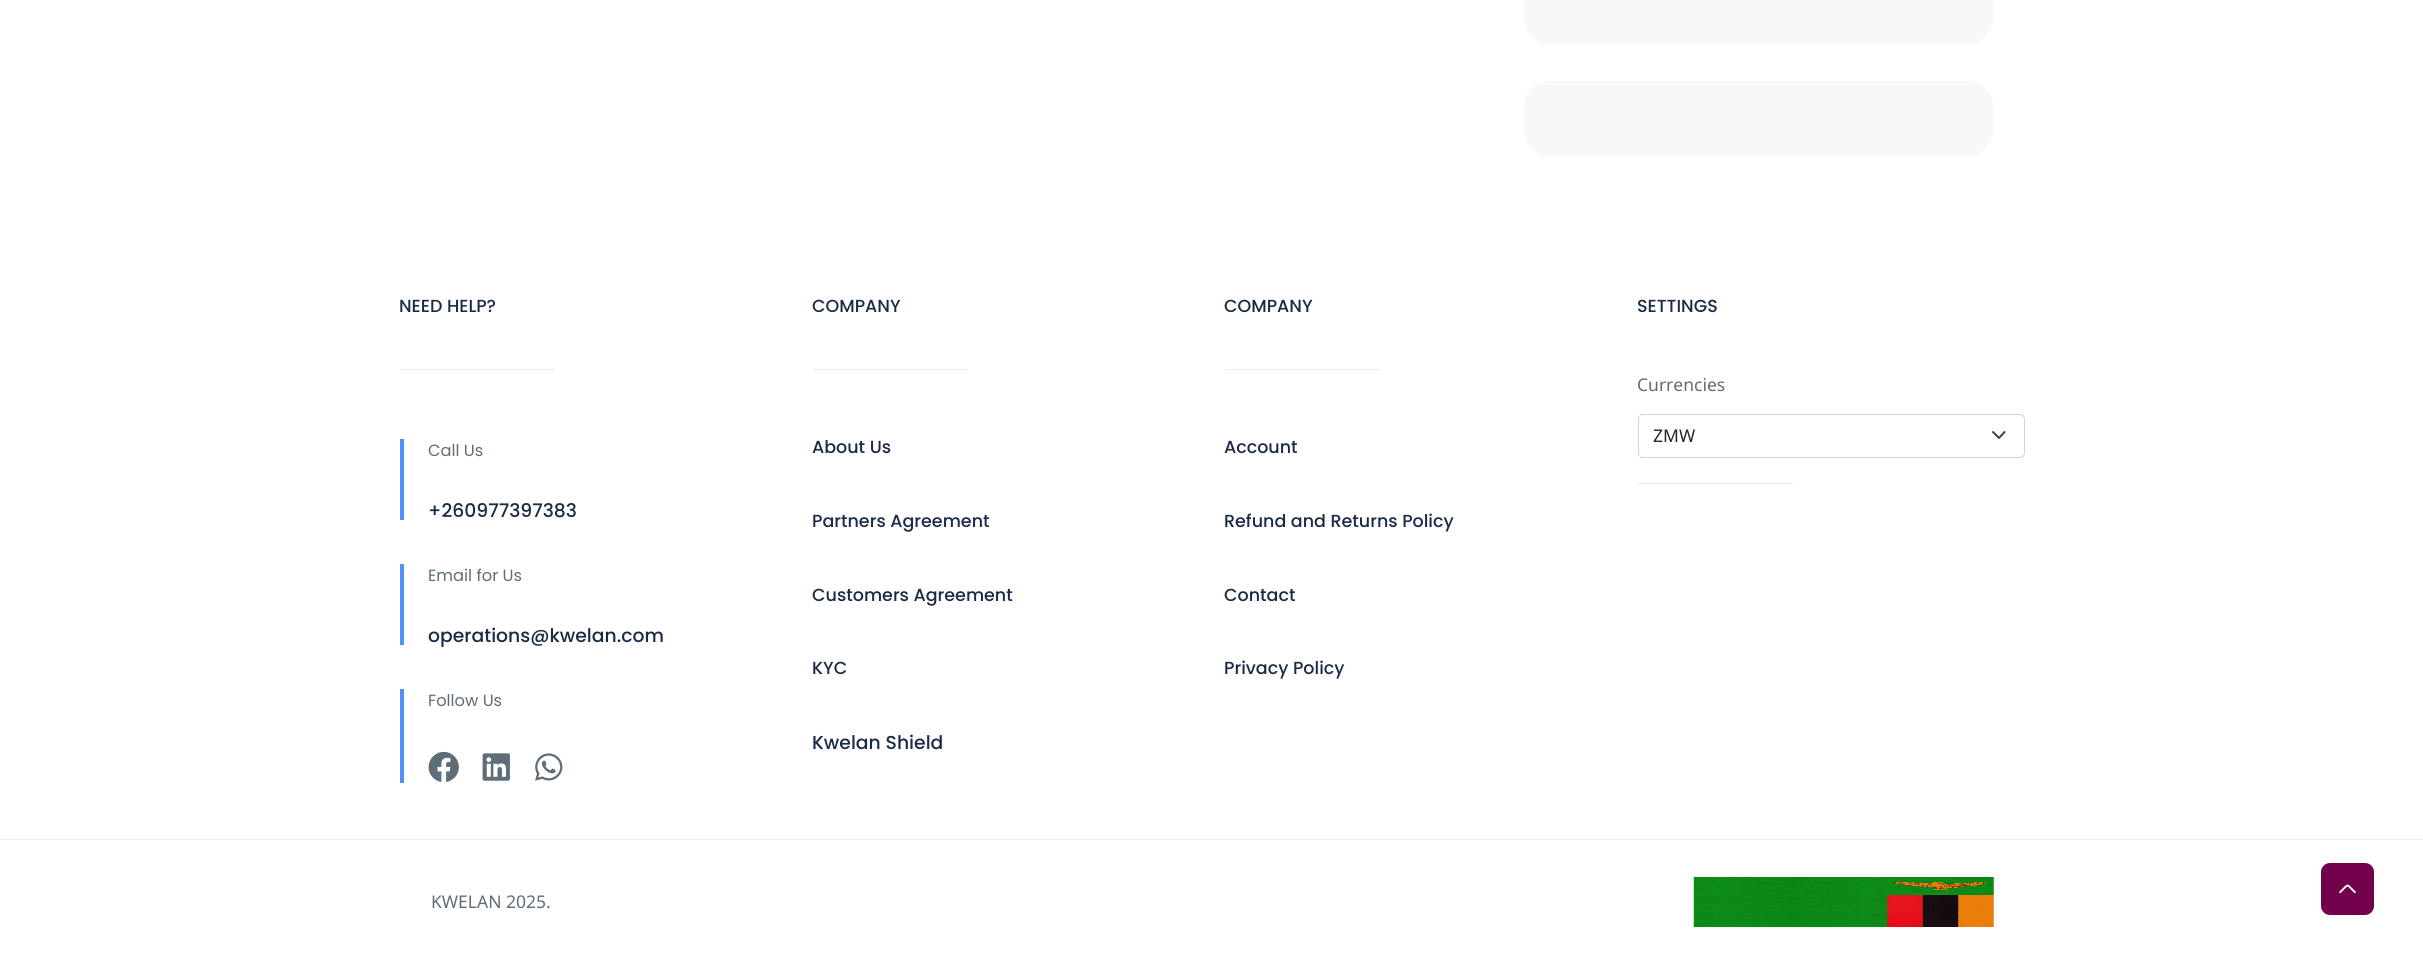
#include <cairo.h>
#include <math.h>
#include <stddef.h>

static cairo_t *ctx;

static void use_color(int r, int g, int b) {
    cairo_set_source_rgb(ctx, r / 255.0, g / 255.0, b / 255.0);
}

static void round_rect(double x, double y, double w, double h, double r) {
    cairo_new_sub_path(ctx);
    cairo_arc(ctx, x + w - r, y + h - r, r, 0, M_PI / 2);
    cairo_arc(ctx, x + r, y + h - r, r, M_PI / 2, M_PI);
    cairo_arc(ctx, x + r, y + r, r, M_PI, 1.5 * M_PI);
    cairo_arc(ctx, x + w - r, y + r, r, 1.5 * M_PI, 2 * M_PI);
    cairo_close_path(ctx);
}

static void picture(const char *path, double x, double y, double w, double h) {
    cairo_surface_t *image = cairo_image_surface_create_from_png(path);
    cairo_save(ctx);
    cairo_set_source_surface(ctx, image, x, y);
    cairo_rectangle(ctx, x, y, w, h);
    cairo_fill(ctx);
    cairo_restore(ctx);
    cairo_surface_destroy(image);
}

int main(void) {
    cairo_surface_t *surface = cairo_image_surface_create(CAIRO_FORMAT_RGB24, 2423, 964);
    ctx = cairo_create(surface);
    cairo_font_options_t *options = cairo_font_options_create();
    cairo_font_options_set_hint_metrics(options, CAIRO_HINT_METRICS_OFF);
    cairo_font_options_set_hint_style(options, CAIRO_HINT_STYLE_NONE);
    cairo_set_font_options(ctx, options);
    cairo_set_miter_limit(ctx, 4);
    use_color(255, 255, 255);
    cairo_paint(ctx);
    use_color(247, 248, 250);
    round_rect(1524, -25, 469, 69, 25);
    cairo_fill(ctx);
    round_rect(1524, 81, 469, 75, 25);
    cairo_fill(ctx);
    use_color(234, 238, 243);
    cairo_rectangle(ctx, 0, 839, 2423, 1);
    cairo_fill(ctx);
    cairo_select_font_face(ctx, "Poppins Medium", CAIRO_FONT_SLANT_NORMAL, CAIRO_FONT_WEIGHT_NORMAL);
    cairo_set_font_size(ctx, 17.5);
    use_color(26, 43, 72);
    cairo_move_to(ctx, 399, 312);
    cairo_show_text(ctx, "NEED HELP?");
    use_color(235, 235, 235);
    cairo_rectangle(ctx, 400, 369, 155, 1);
    cairo_fill(ctx);
    use_color(81, 145, 250);
    cairo_rectangle(ctx, 400, 439, 4, 81);
    cairo_fill(ctx);
    cairo_select_font_face(ctx, "Poppins", CAIRO_FONT_SLANT_NORMAL, CAIRO_FONT_WEIGHT_NORMAL);
    cairo_set_font_size(ctx, 16.25);
    use_color(94, 109, 119);
    cairo_move_to(ctx, 428, 456);
    cairo_show_text(ctx, "Call Us");
    cairo_select_font_face(ctx, "Poppins Medium", CAIRO_FONT_SLANT_NORMAL, CAIRO_FONT_WEIGHT_NORMAL);
    cairo_set_font_size(ctx, 18.75);
    use_color(26, 43, 72);
    cairo_move_to(ctx, 428, 517);
    cairo_show_text(ctx, "+260977397383");
    use_color(81, 145, 250);
    cairo_rectangle(ctx, 400, 564, 4, 81);
    cairo_fill(ctx);
    cairo_select_font_face(ctx, "Poppins", CAIRO_FONT_SLANT_NORMAL, CAIRO_FONT_WEIGHT_NORMAL);
    cairo_set_font_size(ctx, 16.25);
    use_color(94, 109, 119);
    cairo_move_to(ctx, 428, 581);
    cairo_show_text(ctx, "Email for Us");
    cairo_select_font_face(ctx, "Poppins Medium", CAIRO_FONT_SLANT_NORMAL, CAIRO_FONT_WEIGHT_NORMAL);
    cairo_set_font_size(ctx, 18.75);
    use_color(26, 43, 72);
    cairo_move_to(ctx, 428, 642);
    cairo_show_text(ctx, "operations@kwelan.com");
    use_color(81, 145, 250);
    cairo_rectangle(ctx, 400, 689, 4, 94);
    cairo_fill(ctx);
    cairo_select_font_face(ctx, "Poppins", CAIRO_FONT_SLANT_NORMAL, CAIRO_FONT_WEIGHT_NORMAL);
    cairo_set_font_size(ctx, 16.25);
    use_color(94, 109, 119);
    cairo_move_to(ctx, 428, 706);
    cairo_show_text(ctx, "Follow Us");
    picture("img1.png", 428, 751, 31, 31);
    picture("img2.png", 482, 753, 28, 28);
    picture("img3.png", 535, 753, 28, 28);
    cairo_select_font_face(ctx, "Poppins Medium", CAIRO_FONT_SLANT_NORMAL, CAIRO_FONT_WEIGHT_NORMAL);
    cairo_set_font_size(ctx, 17.5);
    use_color(26, 43, 72);
    cairo_move_to(ctx, 812, 312);
    cairo_show_text(ctx, "COMPANY");
    use_color(235, 235, 235);
    cairo_rectangle(ctx, 813, 369, 155, 1);
    cairo_fill(ctx);
    use_color(26, 43, 72);
    cairo_move_to(ctx, 812, 453);
    cairo_show_text(ctx, "About Us");
    cairo_move_to(ctx, 812, 527);
    cairo_show_text(ctx, "Partners Agreement");
    cairo_move_to(ctx, 812, 601);
    cairo_show_text(ctx, "Customers Agreement");
    cairo_move_to(ctx, 812, 674);
    cairo_show_text(ctx, "KYC");
    cairo_set_font_size(ctx, 18.75);
    cairo_move_to(ctx, 812, 749);
    cairo_show_text(ctx, "Kwelan Shield");
    cairo_set_font_size(ctx, 17.5);
    cairo_move_to(ctx, 1224, 312);
    cairo_show_text(ctx, "COMPANY");
    use_color(235, 235, 235);
    cairo_rectangle(ctx, 1225, 369, 155, 1);
    cairo_fill(ctx);
    use_color(26, 43, 72);
    cairo_move_to(ctx, 1224, 453);
    cairo_show_text(ctx, "Account");
    cairo_move_to(ctx, 1224, 527);
    cairo_show_text(ctx, "Refund and Returns Policy");
    cairo_move_to(ctx, 1224, 601);
    cairo_show_text(ctx, "Contact");
    cairo_move_to(ctx, 1224, 674);
    cairo_show_text(ctx, "Privacy Policy");
    cairo_move_to(ctx, 1637, 312);
    cairo_show_text(ctx, "SETTINGS");
    cairo_select_font_face(ctx, "Noto Sans", CAIRO_FONT_SLANT_NORMAL, CAIRO_FONT_WEIGHT_NORMAL);
    use_color(94, 109, 119);
    cairo_move_to(ctx, 1637, 391);
    cairo_show_text(ctx, "Currencies");
    cairo_new_path(ctx);
    cairo_move_to(ctx, 1993, 432);
    cairo_line_to(ctx, 1999, 438);
    cairo_line_to(ctx, 2004.5, 432);
    use_color(52, 58, 64);
    cairo_set_line_width(ctx, 1.9);
    cairo_set_line_cap(ctx, CAIRO_LINE_CAP_ROUND);
    cairo_set_line_join(ctx, CAIRO_LINE_JOIN_ROUND);
    cairo_stroke(ctx);
    round_rect(1638.5, 414.5, 386, 43, 4.5);
    use_color(206, 212, 218);
    cairo_set_line_width(ctx, 1);
    cairo_set_line_cap(ctx, CAIRO_LINE_CAP_BUTT);
    cairo_set_line_join(ctx, CAIRO_LINE_JOIN_MITER);
    cairo_stroke(ctx);
    use_color(33, 37, 41);
    cairo_move_to(ctx, 1653, 442);
    cairo_show_text(ctx, "ZMW");
    use_color(235, 235, 235);
    cairo_rectangle(ctx, 1638, 483, 155, 1);
    cairo_fill(ctx);
    use_color(94, 109, 119);
    cairo_move_to(ctx, 431, 908);
    cairo_show_text(ctx, "KWELAN 2025.");
    picture("img4.png", 1693, 877, 301, 50);
    use_color(115, 0, 75);
    round_rect(2321, 863, 53, 52, 9);
    cairo_fill(ctx);
    picture("img5.png", 2339, 884, 17, 10);
    cairo_surface_write_to_png(surface, "result.png");
    cairo_font_options_destroy(options);
    cairo_destroy(ctx);
    cairo_surface_destroy(surface);
    return 0;
}
